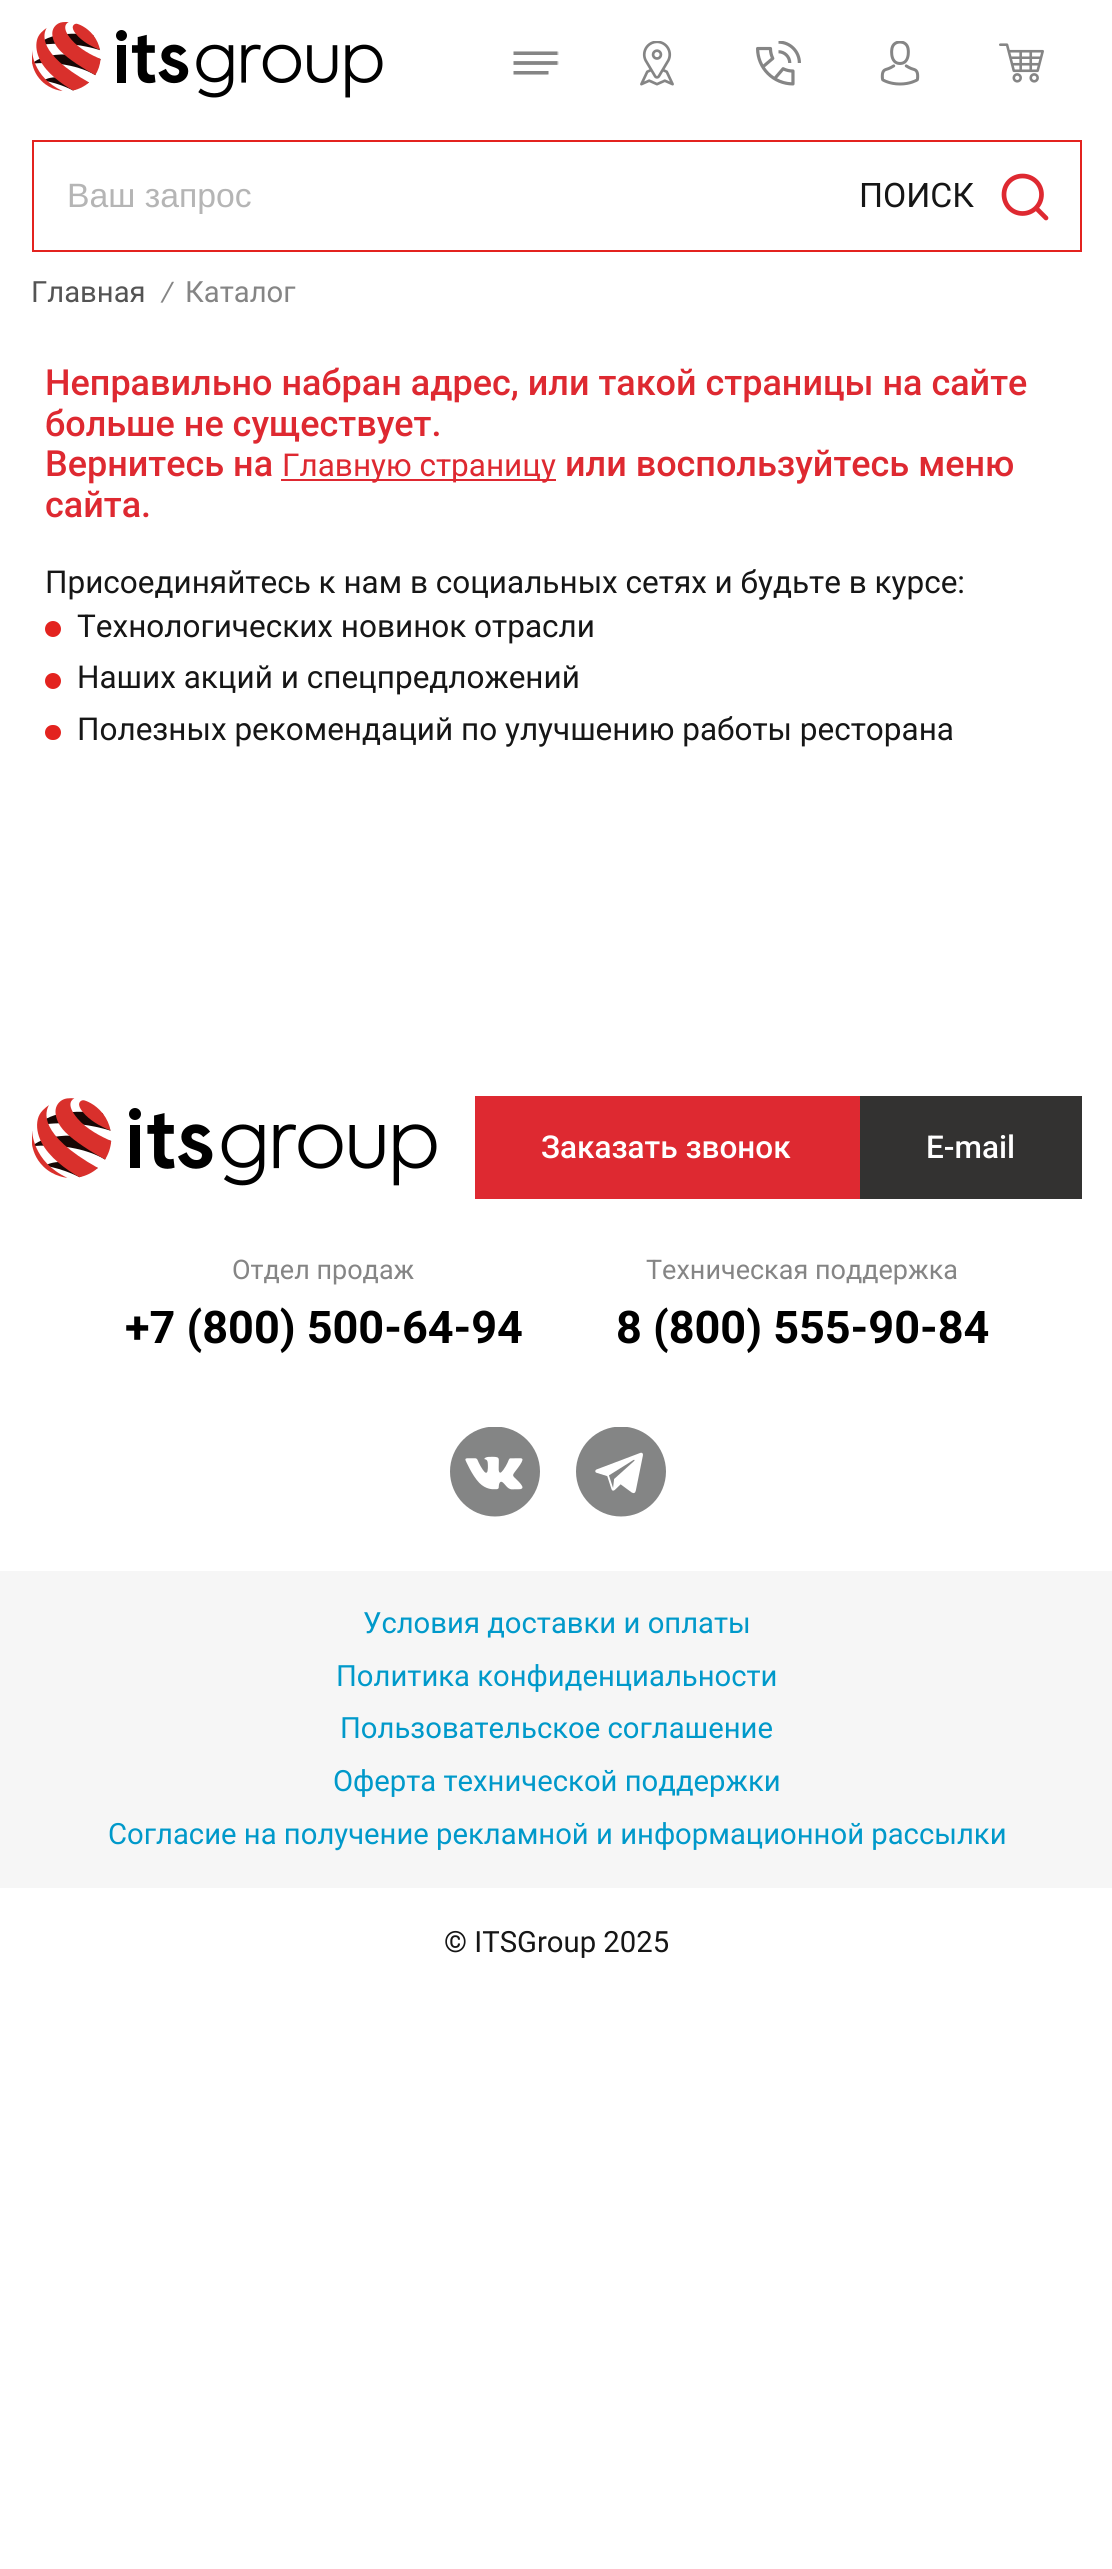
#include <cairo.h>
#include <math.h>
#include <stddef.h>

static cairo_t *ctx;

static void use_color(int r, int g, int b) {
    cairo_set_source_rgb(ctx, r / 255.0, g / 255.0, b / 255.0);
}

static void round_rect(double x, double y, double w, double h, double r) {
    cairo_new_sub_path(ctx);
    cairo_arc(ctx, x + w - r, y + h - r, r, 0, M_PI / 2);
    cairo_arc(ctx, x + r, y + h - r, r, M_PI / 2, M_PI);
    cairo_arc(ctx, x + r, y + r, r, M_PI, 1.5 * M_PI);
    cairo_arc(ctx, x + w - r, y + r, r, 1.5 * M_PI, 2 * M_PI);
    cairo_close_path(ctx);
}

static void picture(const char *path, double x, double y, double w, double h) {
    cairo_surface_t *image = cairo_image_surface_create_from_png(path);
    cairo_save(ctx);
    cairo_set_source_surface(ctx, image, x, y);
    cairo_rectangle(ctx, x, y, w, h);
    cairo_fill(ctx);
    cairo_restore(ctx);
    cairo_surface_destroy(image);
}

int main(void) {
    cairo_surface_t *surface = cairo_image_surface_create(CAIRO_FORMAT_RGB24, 1112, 2569);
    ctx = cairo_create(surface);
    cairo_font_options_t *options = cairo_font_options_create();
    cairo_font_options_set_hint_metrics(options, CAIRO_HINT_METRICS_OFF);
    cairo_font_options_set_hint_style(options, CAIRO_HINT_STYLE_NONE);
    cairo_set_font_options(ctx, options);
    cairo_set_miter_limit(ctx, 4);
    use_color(255, 255, 255);
    cairo_paint(ctx);
    picture("img1.png", 32, 22, 351, 76);
    picture("img2.png", 513, 51, 46, 24);
    picture("img3.png", 640, 41, 34, 45);
    picture("img4.png", 756, 41, 45, 45);
    picture("img5.png", 880, 41, 40, 45);
    picture("img6.png", 999, 43, 45, 40);
    cairo_rectangle(ctx, 33, 141, 1048, 110);
    use_color(227, 35, 31);
    cairo_stroke(ctx);
    cairo_select_font_face(ctx, "Liberation Sans", CAIRO_FONT_SLANT_NORMAL, CAIRO_FONT_WEIGHT_NORMAL);
    cairo_set_font_size(ctx, 33.75);
    use_color(181, 181, 181);
    cairo_move_to(ctx, 67, 207);
    cairo_show_text(ctx, "Ваш запрос");
    cairo_select_font_face(ctx, "Roboto", CAIRO_FONT_SLANT_NORMAL, CAIRO_FONT_WEIGHT_NORMAL);
    use_color(22, 22, 22);
    cairo_move_to(ctx, 859, 207);
    cairo_show_text(ctx, "ПОИСК");
    cairo_new_path(ctx);
    cairo_move_to(ctx, 1022.5, 213.5);
    cairo_curve_to(ctx, 1033, 213.5, 1041.5, 205, 1041.5, 194.5);
    cairo_curve_to(ctx, 1041.5, 184, 1033, 176, 1022.5, 176);
    cairo_curve_to(ctx, 1012, 176, 1004, 184, 1004, 194.5);
    cairo_curve_to(ctx, 1004, 205, 1012, 213.5, 1022.5, 213.5);
    cairo_close_path(ctx);
    cairo_move_to(ctx, 1046, 218);
    cairo_line_to(ctx, 1036, 208);
    use_color(222, 41, 49);
    cairo_set_line_width(ctx, 4.7);
    cairo_set_line_cap(ctx, CAIRO_LINE_CAP_ROUND);
    cairo_set_line_join(ctx, CAIRO_LINE_JOIN_ROUND);
    cairo_stroke(ctx);
    cairo_set_font_size(ctx, 29.25);
    use_color(84, 84, 84);
    cairo_move_to(ctx, 31, 302);
    cairo_show_text(ctx, "Главная");
    cairo_select_font_face(ctx, "Roboto", CAIRO_FONT_SLANT_ITALIC, CAIRO_FONT_WEIGHT_NORMAL);
    cairo_set_font_size(ctx, 27);
    use_color(133, 133, 133);
    cairo_move_to(ctx, 162, 301);
    cairo_show_text(ctx, "/");
    cairo_select_font_face(ctx, "Roboto", CAIRO_FONT_SLANT_NORMAL, CAIRO_FONT_WEIGHT_NORMAL);
    cairo_set_font_size(ctx, 29.25);
    cairo_move_to(ctx, 185, 302);
    cairo_show_text(ctx, "Каталог");
    cairo_select_font_face(ctx, "Roboto Medium", CAIRO_FONT_SLANT_NORMAL, CAIRO_FONT_WEIGHT_NORMAL);
    cairo_set_font_size(ctx, 36);
    use_color(222, 41, 49);
    cairo_move_to(ctx, 45, 395);
    cairo_show_text(ctx, "Неправильно набран адрес, или такой страницы на сайте");
    cairo_move_to(ctx, 45, 436);
    cairo_show_text(ctx, "больше не существует.");
    cairo_move_to(ctx, 45, 476);
    cairo_show_text(ctx, "Вернитесь на");
    cairo_rectangle(ctx, 281, 479, 275, 2);
    cairo_fill(ctx);
    cairo_select_font_face(ctx, "Roboto", CAIRO_FONT_SLANT_NORMAL, CAIRO_FONT_WEIGHT_NORMAL);
    cairo_set_font_size(ctx, 31.5);
    cairo_move_to(ctx, 282, 476);
    cairo_show_text(ctx, "Главную страницу");
    cairo_select_font_face(ctx, "Roboto Medium", CAIRO_FONT_SLANT_NORMAL, CAIRO_FONT_WEIGHT_NORMAL);
    cairo_set_font_size(ctx, 36);
    cairo_move_to(ctx, 565, 476);
    cairo_show_text(ctx, "или воспользуйтесь меню");
    cairo_move_to(ctx, 45, 517);
    cairo_show_text(ctx, "сайта.");
    cairo_select_font_face(ctx, "Roboto", CAIRO_FONT_SLANT_NORMAL, CAIRO_FONT_WEIGHT_NORMAL);
    cairo_set_font_size(ctx, 31.5);
    use_color(22, 22, 22);
    cairo_move_to(ctx, 45, 593);
    cairo_show_text(ctx, "Присоединяйтесь к нам в социальных сетях и будьте в курсе:");
    use_color(227, 35, 31);
    cairo_new_path(ctx);
    cairo_arc(ctx, 53, 629, 8, 0, 2 * M_PI);
    cairo_fill(ctx);
    use_color(22, 22, 22);
    cairo_move_to(ctx, 77, 637);
    cairo_show_text(ctx, "Технологических новинок отрасли");
    use_color(227, 35, 31);
    cairo_new_path(ctx);
    cairo_arc(ctx, 53, 681, 8, 0, 2 * M_PI);
    cairo_fill(ctx);
    use_color(22, 22, 22);
    cairo_move_to(ctx, 77, 688);
    cairo_show_text(ctx, "Наших акций и спецпредложений");
    use_color(227, 35, 31);
    round_rect(45, 725, 16, 15, 7.5);
    cairo_fill(ctx);
    use_color(22, 22, 22);
    cairo_move_to(ctx, 77, 740);
    cairo_show_text(ctx, "Полезных рекомендаций по улучшению работы ресторана");
    picture("img7.png", 32, 1098, 405, 88);
    use_color(222, 41, 49);
    cairo_rectangle(ctx, 475, 1096, 385, 103);
    cairo_fill(ctx);
    cairo_select_font_face(ctx, "Roboto Medium", CAIRO_FONT_SLANT_NORMAL, CAIRO_FONT_WEIGHT_NORMAL);
    use_color(255, 255, 255);
    cairo_move_to(ctx, 541, 1158);
    cairo_show_text(ctx, "Заказать звонок");
    use_color(51, 50, 49);
    cairo_rectangle(ctx, 860, 1096, 222, 103);
    cairo_fill(ctx);
    use_color(255, 255, 255);
    cairo_move_to(ctx, 926, 1158);
    cairo_show_text(ctx, "E-mail");
    cairo_select_font_face(ctx, "Roboto", CAIRO_FONT_SLANT_NORMAL, CAIRO_FONT_WEIGHT_NORMAL);
    cairo_set_font_size(ctx, 27);
    use_color(133, 133, 133);
    cairo_move_to(ctx, 232, 1279);
    cairo_show_text(ctx, "Отдел продаж");
    cairo_select_font_face(ctx, "Roboto", CAIRO_FONT_SLANT_NORMAL, CAIRO_FONT_WEIGHT_BOLD);
    cairo_set_font_size(ctx, 45);
    use_color(0, 0, 0);
    cairo_move_to(ctx, 125, 1343);
    cairo_show_text(ctx, "+7 (800) 500-64-94");
    cairo_select_font_face(ctx, "Roboto", CAIRO_FONT_SLANT_NORMAL, CAIRO_FONT_WEIGHT_NORMAL);
    cairo_set_font_size(ctx, 27);
    use_color(133, 133, 133);
    cairo_move_to(ctx, 646, 1279);
    cairo_show_text(ctx, "Техническая поддержка");
    cairo_select_font_face(ctx, "Roboto", CAIRO_FONT_SLANT_NORMAL, CAIRO_FONT_WEIGHT_BOLD);
    cairo_set_font_size(ctx, 45);
    use_color(0, 0, 0);
    cairo_move_to(ctx, 616, 1343);
    cairo_show_text(ctx, "8 (800) 555-90-84");
    picture("img8.png", 450, 1427, 90, 90);
    picture("img9.png", 576, 1427, 90, 90);
    use_color(246, 246, 246);
    cairo_rectangle(ctx, 0, 1571, 1112, 317);
    cairo_fill(ctx);
    cairo_select_font_face(ctx, "Roboto", CAIRO_FONT_SLANT_NORMAL, CAIRO_FONT_WEIGHT_NORMAL);
    cairo_set_font_size(ctx, 29.25);
    use_color(0, 153, 202);
    cairo_move_to(ctx, 363, 1633);
    cairo_show_text(ctx, "Условия доставки и оплаты");
    cairo_move_to(ctx, 336, 1686);
    cairo_show_text(ctx, "Политика конфиденциальности");
    cairo_move_to(ctx, 340, 1738);
    cairo_show_text(ctx, "Пользовательское соглашение");
    cairo_move_to(ctx, 333, 1791);
    cairo_show_text(ctx, "Оферта технической поддержки");
    cairo_move_to(ctx, 108, 1844);
    cairo_show_text(ctx, "Согласие на получение рекламной и информационной рассылки");
    use_color(22, 22, 22);
    cairo_move_to(ctx, 444, 1952);
    cairo_show_text(ctx, "© ITSGroup 2025");
    cairo_surface_write_to_png(surface, "result.png");
    cairo_font_options_destroy(options);
    cairo_destroy(ctx);
    cairo_surface_destroy(surface);
    return 0;
}
